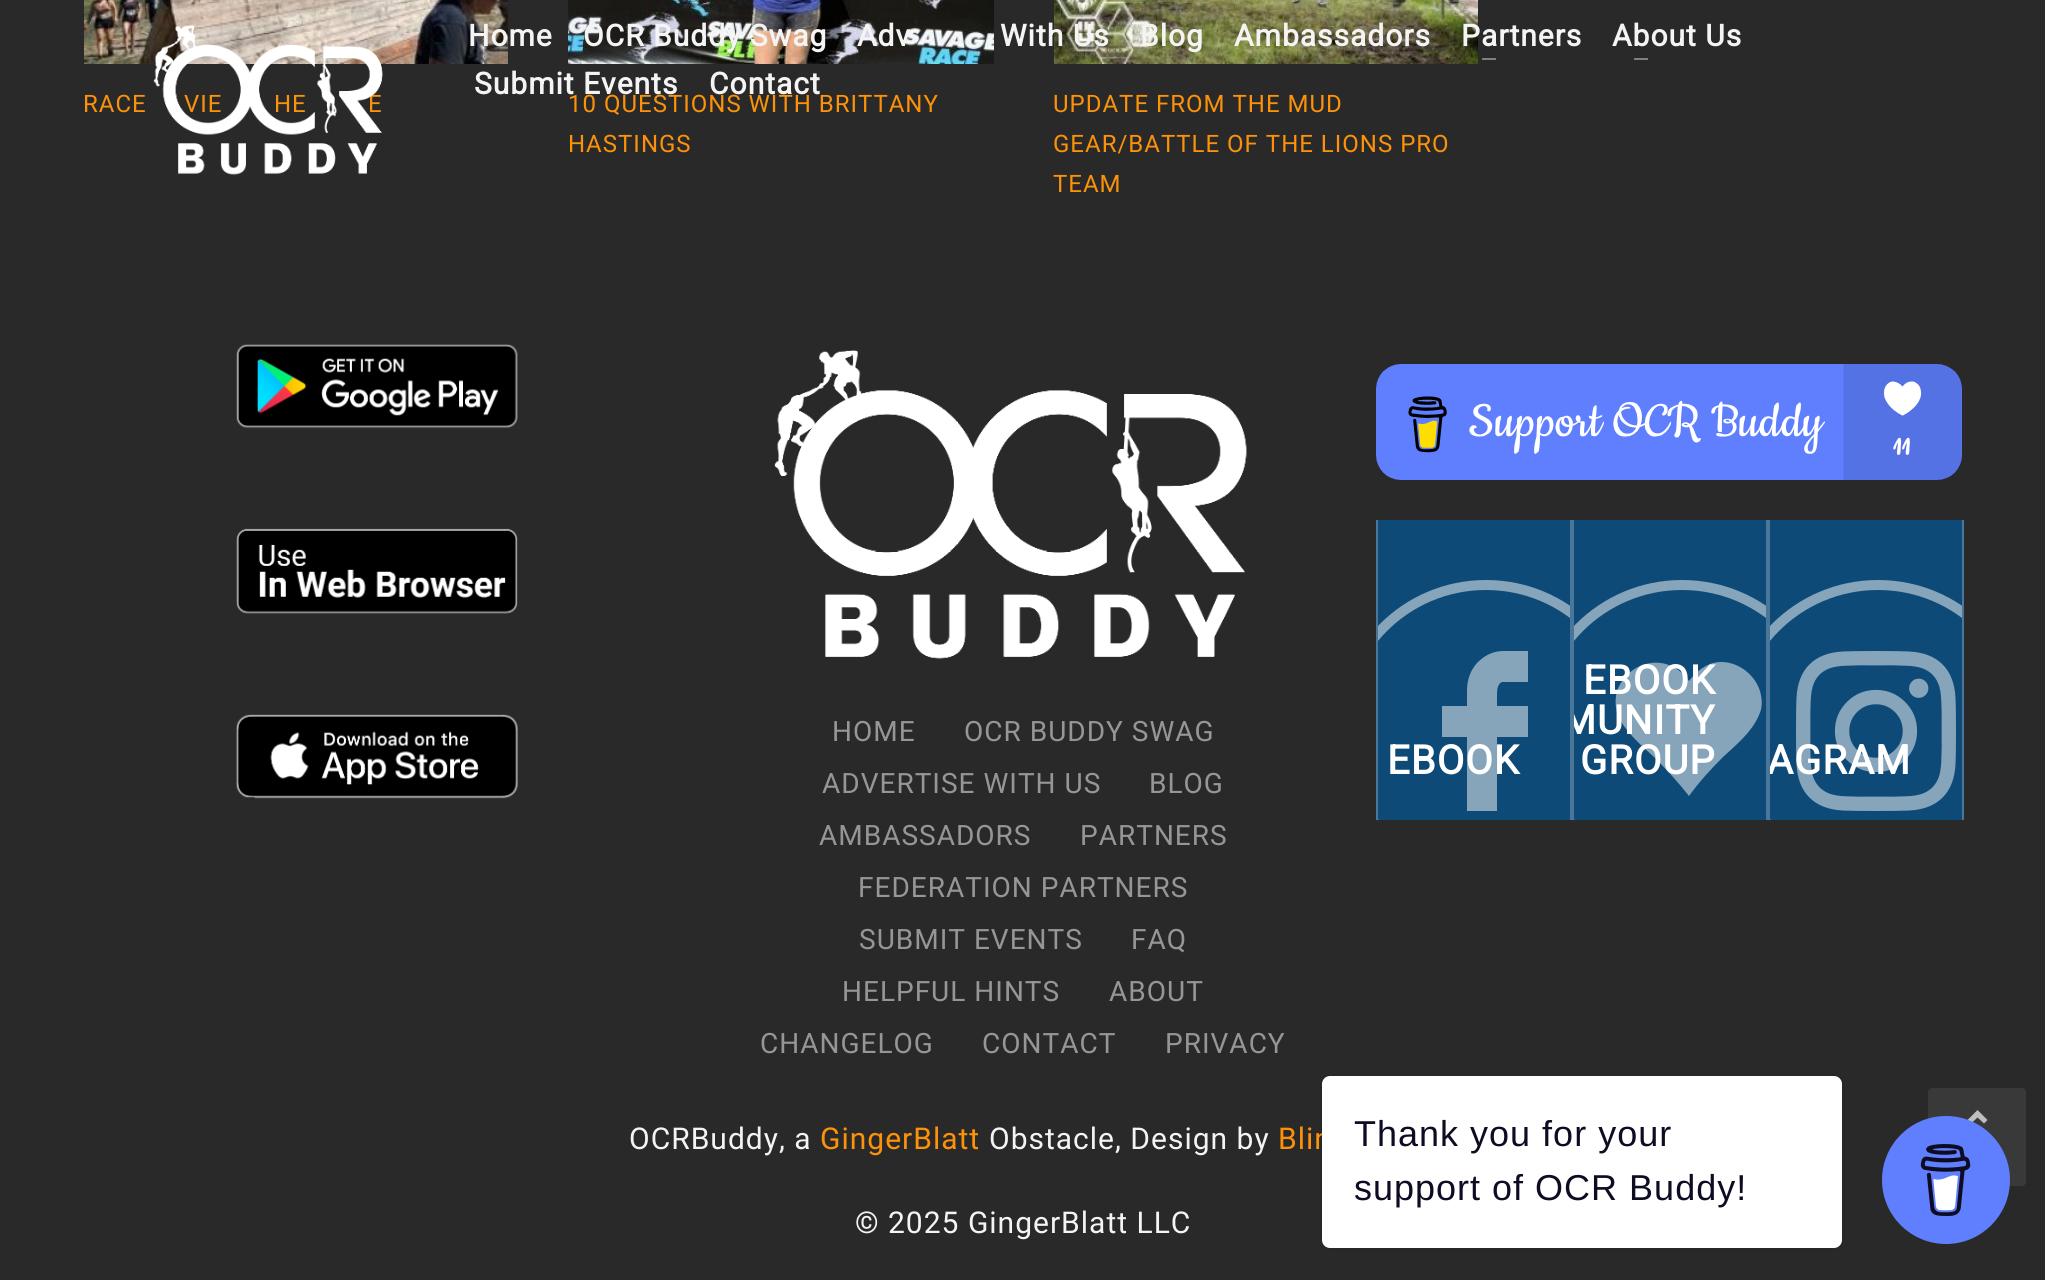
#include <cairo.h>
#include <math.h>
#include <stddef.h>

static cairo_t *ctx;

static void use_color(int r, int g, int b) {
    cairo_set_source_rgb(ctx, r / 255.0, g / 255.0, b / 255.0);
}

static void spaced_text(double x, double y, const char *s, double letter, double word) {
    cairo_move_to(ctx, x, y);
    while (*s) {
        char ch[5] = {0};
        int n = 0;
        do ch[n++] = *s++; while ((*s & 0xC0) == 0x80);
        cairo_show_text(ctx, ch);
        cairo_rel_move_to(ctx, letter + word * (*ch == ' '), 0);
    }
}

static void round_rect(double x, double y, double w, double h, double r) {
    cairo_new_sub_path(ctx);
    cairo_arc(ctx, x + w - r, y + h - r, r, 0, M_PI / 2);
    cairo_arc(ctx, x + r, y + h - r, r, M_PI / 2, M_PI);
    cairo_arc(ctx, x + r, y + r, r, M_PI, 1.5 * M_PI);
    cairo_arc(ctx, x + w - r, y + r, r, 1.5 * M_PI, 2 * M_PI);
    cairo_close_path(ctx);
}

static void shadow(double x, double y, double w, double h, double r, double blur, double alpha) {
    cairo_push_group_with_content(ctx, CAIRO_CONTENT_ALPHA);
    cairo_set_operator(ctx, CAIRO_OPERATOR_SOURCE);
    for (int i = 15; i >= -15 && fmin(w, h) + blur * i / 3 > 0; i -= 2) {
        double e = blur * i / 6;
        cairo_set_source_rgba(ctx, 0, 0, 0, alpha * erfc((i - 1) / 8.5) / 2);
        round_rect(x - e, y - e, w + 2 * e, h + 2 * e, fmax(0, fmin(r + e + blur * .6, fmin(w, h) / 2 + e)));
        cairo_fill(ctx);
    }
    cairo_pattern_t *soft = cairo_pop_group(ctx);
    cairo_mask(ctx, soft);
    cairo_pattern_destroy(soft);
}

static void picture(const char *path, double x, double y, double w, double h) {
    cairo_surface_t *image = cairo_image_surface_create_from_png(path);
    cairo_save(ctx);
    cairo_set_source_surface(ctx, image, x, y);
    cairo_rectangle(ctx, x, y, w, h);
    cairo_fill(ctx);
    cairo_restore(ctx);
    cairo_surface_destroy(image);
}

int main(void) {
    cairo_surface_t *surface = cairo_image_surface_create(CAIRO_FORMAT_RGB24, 2045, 1280);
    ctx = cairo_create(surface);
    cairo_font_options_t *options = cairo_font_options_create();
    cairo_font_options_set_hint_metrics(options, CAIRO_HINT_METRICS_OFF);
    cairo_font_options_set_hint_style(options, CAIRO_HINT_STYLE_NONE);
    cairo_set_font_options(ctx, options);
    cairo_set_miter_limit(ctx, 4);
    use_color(41, 41, 41);
    cairo_paint(ctx);
    picture("img2.png", 84, 0, 424, 64);
    cairo_select_font_face(ctx, "Roboto", CAIRO_FONT_SLANT_NORMAL, CAIRO_FONT_WEIGHT_NORMAL);
    cairo_set_font_size(ctx, 24);
    use_color(251, 146, 10);
    spaced_text(184, 112, "VIE", 1, 0);
    spaced_text(274, 112, "HE", 1, 0);
    spaced_text(368, 112, "E", 1, 0);
    picture("img1.png", 153, 25, 230, 150);
    cairo_select_font_face(ctx, "Roboto", CAIRO_FONT_SLANT_NORMAL, CAIRO_FONT_WEIGHT_BOLD);
    cairo_set_font_size(ctx, 30);
    use_color(244, 244, 244);
    spaced_text(468, 46, "Home", 1, 0);
    picture("img3.png", 568, 0, 426, 64);
    spaced_text(583, 46, "OCR Buddy Swag", 1, 0);
    spaced_text(857, 46, "Adv", 1, 0);
    picture("img4.png", 1054, 0, 424, 64);
    spaced_text(1000, 46, "With Us", 1, 0);
    spaced_text(1140, 46, "Blog", 1, 0);
    spaced_text(1234, 46, "Ambassadors", 1, 0);
    spaced_text(1461, 46, "Partners", 1, 0);
    use_color(127, 127, 127);
    cairo_rectangle(ctx, 1482, 58, 14, 2);
    cairo_fill(ctx);
    use_color(244, 244, 244);
    spaced_text(1612, 46, "About Us", 1, 0);
    use_color(127, 127, 127);
    cairo_rectangle(ctx, 1634, 58, 14, 2);
    cairo_fill(ctx);
    use_color(244, 244, 244);
    spaced_text(474, 94, "Submit Events", 1, 0);
    spaced_text(709, 94, "Contact", 1, 0);
    cairo_select_font_face(ctx, "Roboto", CAIRO_FONT_SLANT_NORMAL, CAIRO_FONT_WEIGHT_NORMAL);
    cairo_set_font_size(ctx, 24);
    use_color(251, 146, 10);
    spaced_text(83, 112, "RACE", 1, 0);
    spaced_text(568, 112, "10 QUESTIONS WITH BRITTANY", 1, 0);
    spaced_text(568, 152, "HASTINGS", 1, 0);
    spaced_text(1053, 112, "UPDATE FROM THE MUD", 1, 0);
    spaced_text(1053, 152, "GEAR/BATTLE OF THE LIONS PRO", 1, 0);
    spaced_text(1053, 192, "TEAM", 1, 0);
    picture("img5.png", 236, 344, 282, 85);
    picture("img6.png", 236, 528, 282, 86);
    picture("img7.png", 236, 714, 282, 85);
    picture("img8.png", 774, 350, 473, 309);
    cairo_set_font_size(ctx, 28);
    use_color(150, 150, 150);
    spaced_text(832, 741, "HOME", 1, 0);
    spaced_text(964, 741, "OCR BUDDY SWAG", 1, 0);
    spaced_text(822, 793, "ADVERTISE WITH US", 1, 0);
    spaced_text(1149, 793, "BLOG", 1, 0);
    spaced_text(819, 845, "AMBASSADORS", 1, 0);
    spaced_text(1080, 845, "PARTNERS", 1, 0);
    spaced_text(858, 897, "FEDERATION PARTNERS", 1, 0);
    spaced_text(859, 949, "SUBMIT EVENTS", 1, 0);
    spaced_text(1131, 949, "FAQ", 1, 0);
    spaced_text(842, 1001, "HELPFUL HINTS", 1, 0);
    spaced_text(1109, 1001, "ABOUT", 1, 0);
    spaced_text(760, 1053, "CHANGELOG", 1, 0);
    spaced_text(982, 1053, "CONTACT", 1, 0);
    spaced_text(1165, 1053, "PRIVACY", 1, 0);
    picture("img9.png", 1376, 364, 586, 116);
    use_color(13, 74, 119);
    cairo_rectangle(ctx, 1378, 520, 192, 300);
    cairo_fill(ctx);
    use_color(74, 119, 153);
    cairo_rectangle(ctx, 1570, 520, 4, 300);
    cairo_fill(ctx);
    cairo_rectangle(ctx, 1376, 520, 2, 300);
    cairo_fill(ctx);
    cairo_select_font_face(ctx, "Roboto", CAIRO_FONT_SLANT_NORMAL, CAIRO_FONT_WEIGHT_BOLD);
    cairo_set_font_size(ctx, 40);
    use_color(255, 255, 255);
    spaced_text(1387, 774, "EBOOK", 1, 0);
    use_color(13, 74, 119);
    cairo_rectangle(ctx, 1574, 520, 192, 300);
    cairo_fill(ctx);
    cairo_save(ctx);
    cairo_rectangle(ctx, 1378, 520, 192, 300);
    cairo_clip(ctx);
    cairo_arc(ctx, 1486, 730, 145, 0, 2 * M_PI);
    use_color(134, 165, 187);
    cairo_set_line_width(ctx, 10);
    cairo_stroke(ctx);
    cairo_restore(ctx);
    cairo_set_source_rgba(ctx, 1, 1, 1, 0.5);
    cairo_new_path(ctx);
    cairo_move_to(ctx, 1442, 737);
    cairo_line_to(ctx, 1442, 706);
    cairo_line_to(ctx, 1467, 706);
    cairo_line_to(ctx, 1467, 691);
    cairo_curve_to(ctx, 1467, 680, 1470, 671, 1477, 663);
    cairo_curve_to(ctx, 1485, 655, 1493, 651, 1504, 651);
    cairo_line_to(ctx, 1528, 651);
    cairo_line_to(ctx, 1528, 682);
    cairo_line_to(ctx, 1502, 682);
    cairo_curve_to(ctx, 1497, 684, 1497, 691, 1497, 696);
    cairo_line_to(ctx, 1497, 706);
    cairo_line_to(ctx, 1528, 706);
    cairo_line_to(ctx, 1528, 737);
    cairo_line_to(ctx, 1497, 737);
    cairo_line_to(ctx, 1497, 811);
    cairo_line_to(ctx, 1467, 811);
    cairo_line_to(ctx, 1467, 737);
    cairo_close_path(ctx);
    cairo_fill(ctx);
    use_color(74, 119, 153);
    cairo_rectangle(ctx, 1766, 520, 4, 300);
    cairo_fill(ctx);
    use_color(255, 255, 255);
    spaced_text(1583, 694, "EBOOK", 1, 0);
    cairo_save(ctx);
    cairo_rectangle(ctx, 1574, 520, 192, 300);
    cairo_clip(ctx);
    spaced_text(1561, 734, "MUNITY", 1, 0);
    cairo_restore(ctx);
    spaced_text(1580, 774, "GROUP", 1, 0);
    use_color(13, 74, 119);
    cairo_rectangle(ctx, 1770, 520, 192, 300);
    cairo_fill(ctx);
    cairo_save(ctx);
    cairo_rectangle(ctx, 1574, 520, 192, 300);
    cairo_clip(ctx);
    cairo_arc(ctx, 1682, 730, 145, 0, 2 * M_PI);
    use_color(134, 165, 187);
    cairo_set_line_width(ctx, 10);
    cairo_stroke(ctx);
    cairo_restore(ctx);
    cairo_set_source_rgba(ctx, 1, 1, 1, 0.5);
    cairo_new_path(ctx);
    cairo_move_to(ctx, 1689, 681);
    cairo_curve_to(ctx, 1695, 673, 1703, 666, 1713, 663);
    cairo_curve_to(ctx, 1733, 658, 1754, 672, 1760, 691);
    cairo_curve_to(ctx, 1762, 699, 1763, 707, 1759, 715);
    cairo_curve_to(ctx, 1752, 732, 1736, 745, 1723, 757);
    cairo_curve_to(ctx, 1711, 769, 1699, 782, 1689, 796);
    cairo_curve_to(ctx, 1678, 782, 1666, 769, 1654, 757);
    cairo_curve_to(ctx, 1641, 745, 1625, 732, 1618, 715);
    cairo_curve_to(ctx, 1615, 707, 1615, 699, 1617, 691);
    cairo_curve_to(ctx, 1629, 659, 1669, 652, 1689, 681);
    cairo_close_path(ctx);
    cairo_fill(ctx);
    use_color(74, 119, 153);
    cairo_rectangle(ctx, 1962, 520, 2, 300);
    cairo_fill(ctx);
    cairo_save(ctx);
    cairo_rectangle(ctx, 1770, 520, 192, 300);
    cairo_clip(ctx);
    use_color(255, 255, 255);
    spaced_text(1767, 774, "AGRAM", 1, 0);
    cairo_new_path(ctx);
    cairo_arc(ctx, 1878, 730, 145, 0, 2 * M_PI);
    use_color(134, 165, 187);
    cairo_set_line_width(ctx, 10);
    cairo_stroke(ctx);
    cairo_restore(ctx);
    picture("img10.png", 1796, 651, 160, 160);
    cairo_select_font_face(ctx, "Roboto", CAIRO_FONT_SLANT_NORMAL, CAIRO_FONT_WEIGHT_NORMAL);
    cairo_set_font_size(ctx, 30);
    use_color(244, 244, 244);
    spaced_text(629, 1149, "OCRBuddy, a", 1, 0);
    use_color(251, 146, 10);
    spaced_text(820, 1149, "GingerBlatt", 1, 0);
    use_color(244, 244, 244);
    spaced_text(989, 1149, "Obstacle, Design by", 1, 0);
    use_color(251, 146, 10);
    spaced_text(1278, 1149, "Blin", 1, 0);
    use_color(244, 244, 244);
    spaced_text(855, 1233, "© 2025 GingerBlatt LLC", 1, 0);
    use_color(57, 57, 57);
    round_rect(1928, 1088, 98, 98, 4);
    cairo_fill(ctx);
    use_color(191, 191, 191);
    cairo_new_path(ctx);
    cairo_move_to(ctx, 1977.5, 1110);
    cairo_line_to(ctx, 1987.5, 1120);
    cairo_line_to(ctx, 1984, 1123.5);
    cairo_line_to(ctx, 1977.5, 1117.5);
    cairo_line_to(ctx, 1971, 1123.5);
    cairo_line_to(ctx, 1967.5, 1120);
    cairo_close_path(ctx);
    cairo_fill(ctx);
    use_color(0, 0, 0);
    shadow(1322, 1076, 520, 172, 8, 2, 0.15);
    use_color(255, 255, 255);
    round_rect(1322, 1076, 520, 172, 8);
    cairo_fill(ctx);
    cairo_select_font_face(ctx, "Liberation Sans", CAIRO_FONT_SLANT_NORMAL, CAIRO_FONT_WEIGHT_NORMAL);
    cairo_set_font_size(ctx, 36);
    use_color(13, 12, 34);
    spaced_text(1354, 1146, "Thank you for your", 1, 0);
    spaced_text(1354, 1200, "support of OCR Buddy!", 1, 0);
    use_color(95, 127, 255);
    cairo_new_path(ctx);
    cairo_arc(ctx, 1946, 1180, 64, 0, 2 * M_PI);
    cairo_fill(ctx);
    picture("img11.png", 1920, 1144, 51, 72);
    cairo_surface_write_to_png(surface, "result.png");
    cairo_font_options_destroy(options);
    cairo_destroy(ctx);
    cairo_surface_destroy(surface);
    return 0;
}
